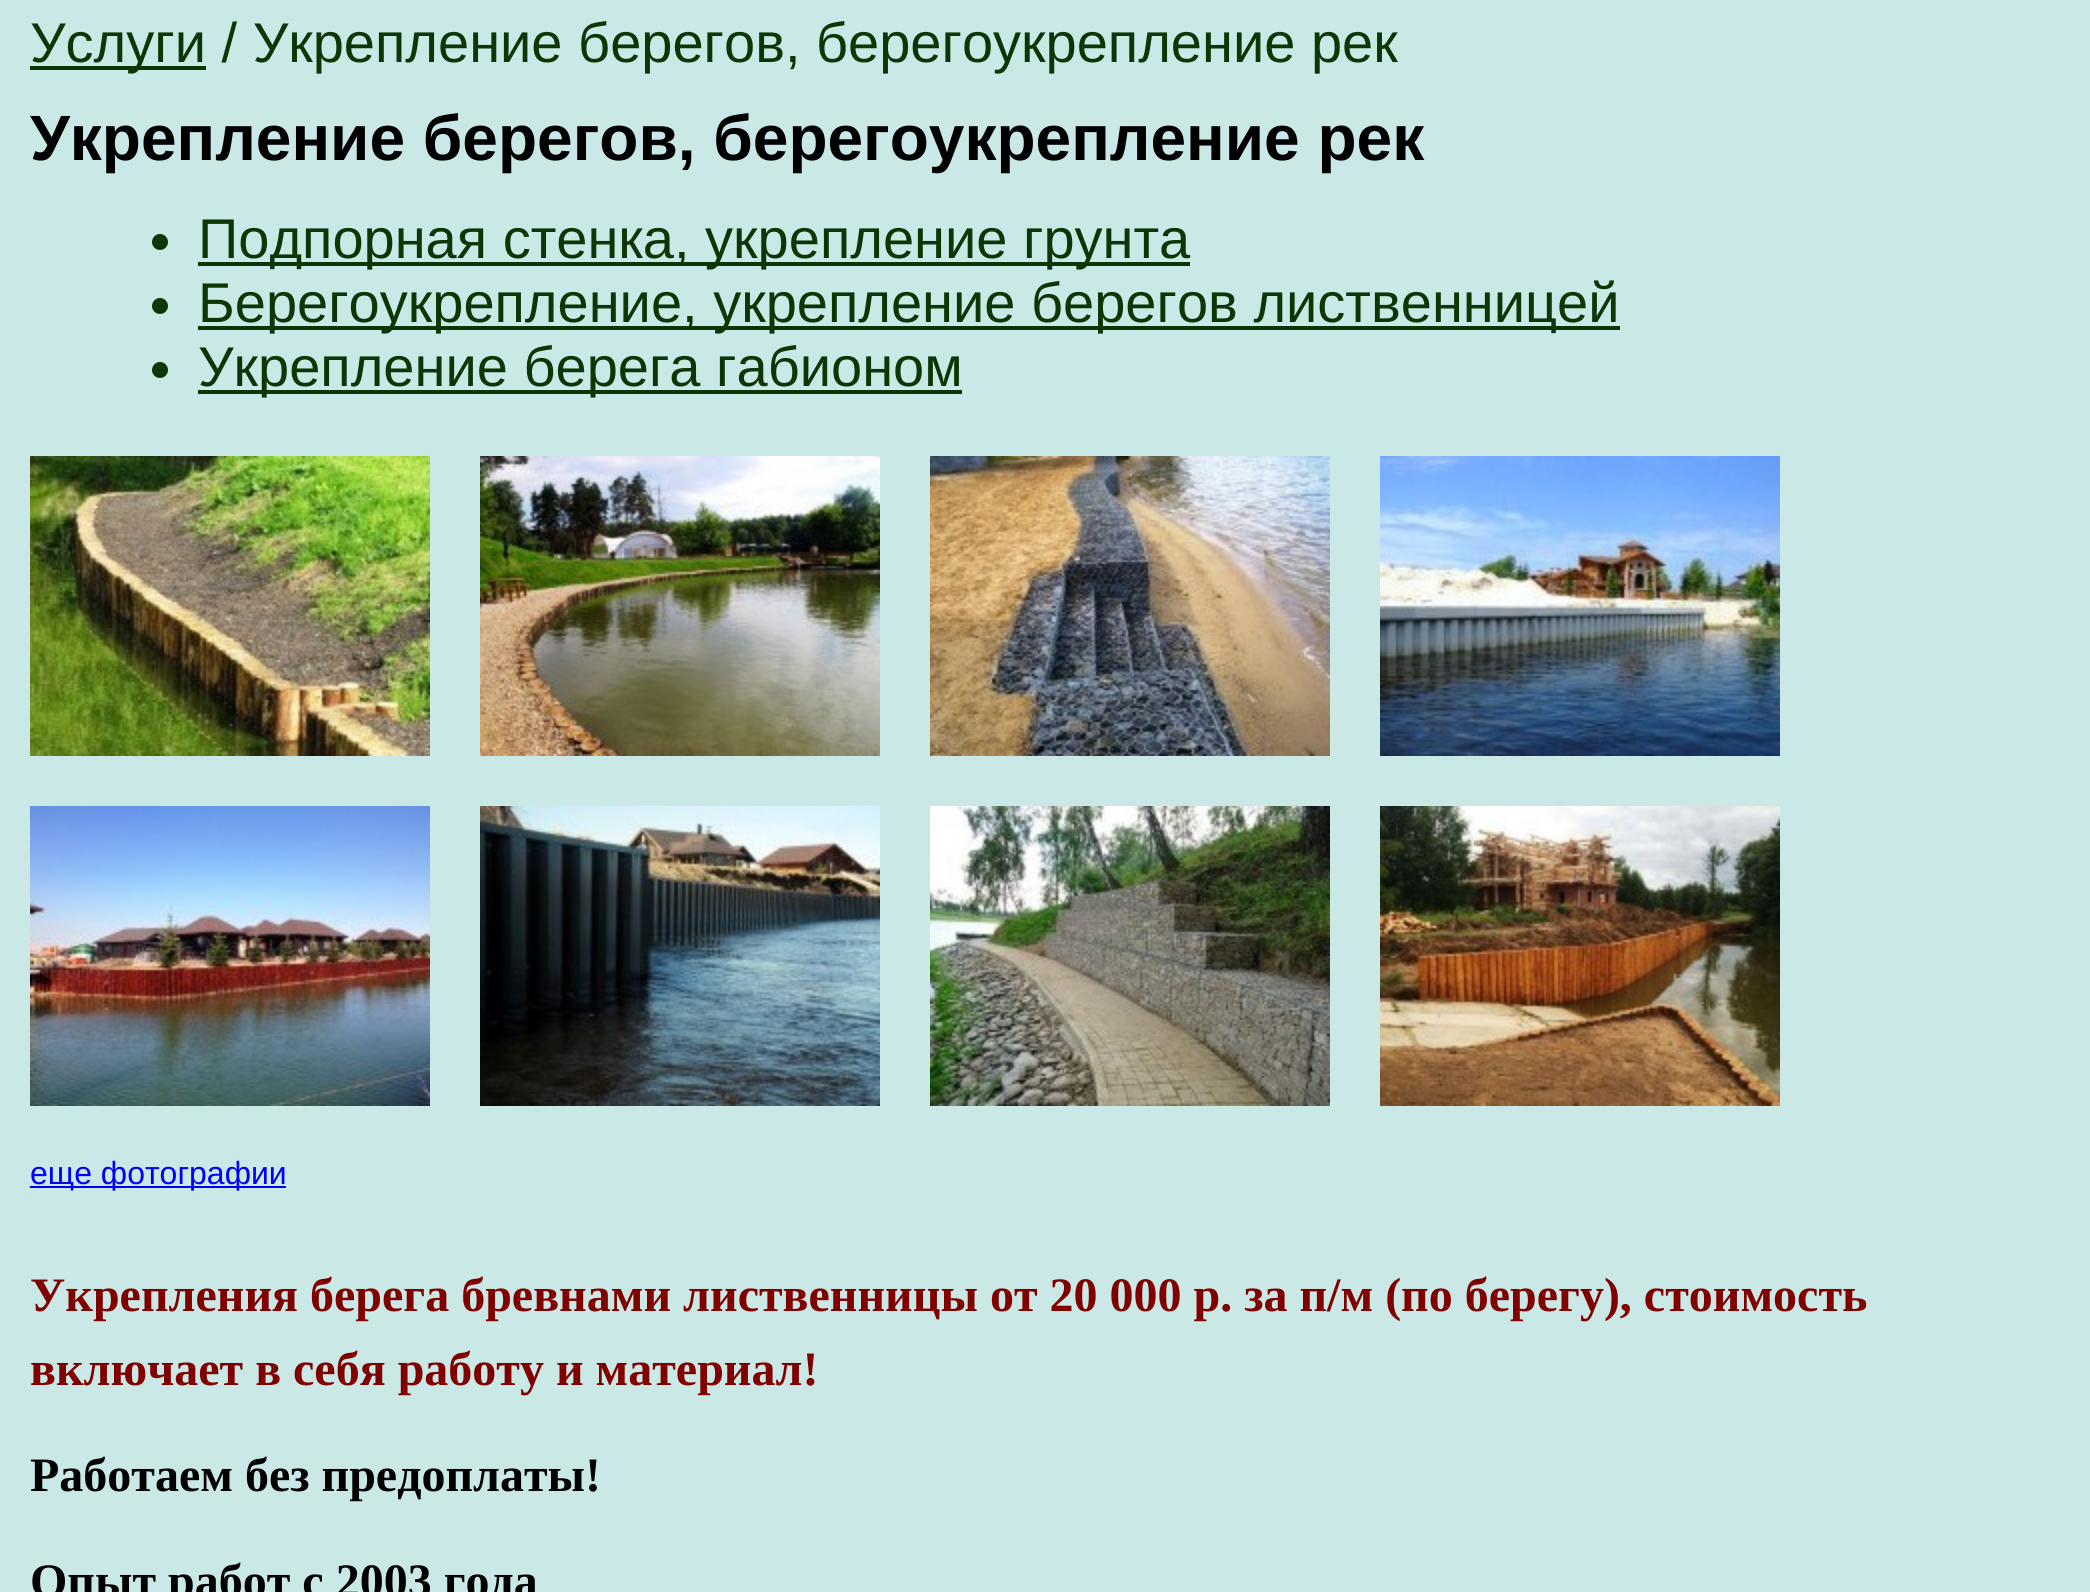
#include <cairo.h>
#include <math.h>
#include <stddef.h>

static cairo_t *ctx;

static void use_color(int r, int g, int b) {
    cairo_set_source_rgb(ctx, r / 255.0, g / 255.0, b / 255.0);
}

static void picture(const char *path, double x, double y, double w, double h) {
    cairo_surface_t *image = cairo_image_surface_create_from_png(path);
    cairo_save(ctx);
    cairo_set_source_surface(ctx, image, x, y);
    cairo_rectangle(ctx, x, y, w, h);
    cairo_fill(ctx);
    cairo_restore(ctx);
    cairo_surface_destroy(image);
}

int main(void) {
    cairo_surface_t *surface = cairo_image_surface_create(CAIRO_FORMAT_RGB24, 2090, 1592);
    ctx = cairo_create(surface);
    cairo_font_options_t *options = cairo_font_options_create();
    cairo_font_options_set_hint_metrics(options, CAIRO_HINT_METRICS_OFF);
    cairo_font_options_set_hint_style(options, CAIRO_HINT_STYLE_NONE);
    cairo_set_font_options(ctx, options);
    cairo_set_miter_limit(ctx, 4);
    use_color(201, 232, 230);
    cairo_paint(ctx);
    use_color(14, 53, 5);
    cairo_rectangle(ctx, 30, 66, 176, 4);
    cairo_fill(ctx);
    cairo_select_font_face(ctx, "Liberation Sans", CAIRO_FONT_SLANT_NORMAL, CAIRO_FONT_WEIGHT_NORMAL);
    cairo_set_font_size(ctx, 56);
    cairo_move_to(ctx, 30, 62);
    cairo_show_text(ctx, "Услуги / Укрепление берегов, берегоукрепление рек");
    cairo_select_font_face(ctx, "Liberation Sans", CAIRO_FONT_SLANT_NORMAL, CAIRO_FONT_WEIGHT_BOLD);
    cairo_set_font_size(ctx, 64);
    use_color(0, 0, 0);
    cairo_move_to(ctx, 30, 160);
    cairo_show_text(ctx, "Укрепление берегов, берегоукрепление рек");
    use_color(14, 53, 5);
    cairo_new_path(ctx);
    cairo_arc(ctx, 160, 242, 8, 0, 2 * M_PI);
    cairo_fill(ctx);
    cairo_rectangle(ctx, 198, 262, 992, 4);
    cairo_fill(ctx);
    cairo_select_font_face(ctx, "Liberation Sans", CAIRO_FONT_SLANT_NORMAL, CAIRO_FONT_WEIGHT_NORMAL);
    cairo_set_font_size(ctx, 56);
    cairo_move_to(ctx, 198, 258);
    cairo_show_text(ctx, "Подпорная стенка, укрепление грунта");
    cairo_new_path(ctx);
    cairo_arc(ctx, 160, 306, 8, 0, 2 * M_PI);
    cairo_fill(ctx);
    cairo_rectangle(ctx, 198, 326, 1422, 4);
    cairo_fill(ctx);
    cairo_move_to(ctx, 198, 322);
    cairo_show_text(ctx, "Берегоукрепление, укрепление берегов лиственницей");
    cairo_new_path(ctx);
    cairo_arc(ctx, 160, 370, 8, 0, 2 * M_PI);
    cairo_fill(ctx);
    cairo_rectangle(ctx, 198, 390, 764, 4);
    cairo_fill(ctx);
    cairo_move_to(ctx, 198, 386);
    cairo_show_text(ctx, "Укрепление берега габионом");
    picture("img1.png", 30, 456, 400, 300);
    picture("img2.png", 480, 456, 400, 300);
    picture("img3.png", 930, 456, 400, 300);
    picture("img4.png", 1380, 456, 400, 300);
    picture("img5.png", 30, 806, 400, 300);
    picture("img6.png", 480, 806, 400, 300);
    picture("img7.png", 930, 806, 400, 300);
    picture("img8.png", 1380, 806, 400, 300);
    use_color(0, 0, 255);
    cairo_rectangle(ctx, 30, 1186, 256, 2);
    cairo_fill(ctx);
    cairo_set_font_size(ctx, 32);
    cairo_move_to(ctx, 30, 1184);
    cairo_show_text(ctx, "еще фотографии");
    cairo_select_font_face(ctx, "Liberation Serif", CAIRO_FONT_SLANT_NORMAL, CAIRO_FONT_WEIGHT_BOLD);
    cairo_set_font_size(ctx, 48);
    use_color(128, 0, 0);
    cairo_move_to(ctx, 30, 1311);
    cairo_show_text(ctx, "Укрепления берега бревнами лиственницы от 20 000 р. за п/м (по берегу), стоимость");
    cairo_move_to(ctx, 30, 1385);
    cairo_show_text(ctx, "включает в себя работу и материал!");
    use_color(0, 0, 0);
    cairo_move_to(ctx, 30, 1491);
    cairo_show_text(ctx, "Работаем без предоплаты!");
    cairo_move_to(ctx, 30, 1597);
    cairo_show_text(ctx, "Опыт работ с 2003 года");
    cairo_surface_write_to_png(surface, "result.png");
    cairo_font_options_destroy(options);
    cairo_destroy(ctx);
    cairo_surface_destroy(surface);
    return 0;
}
